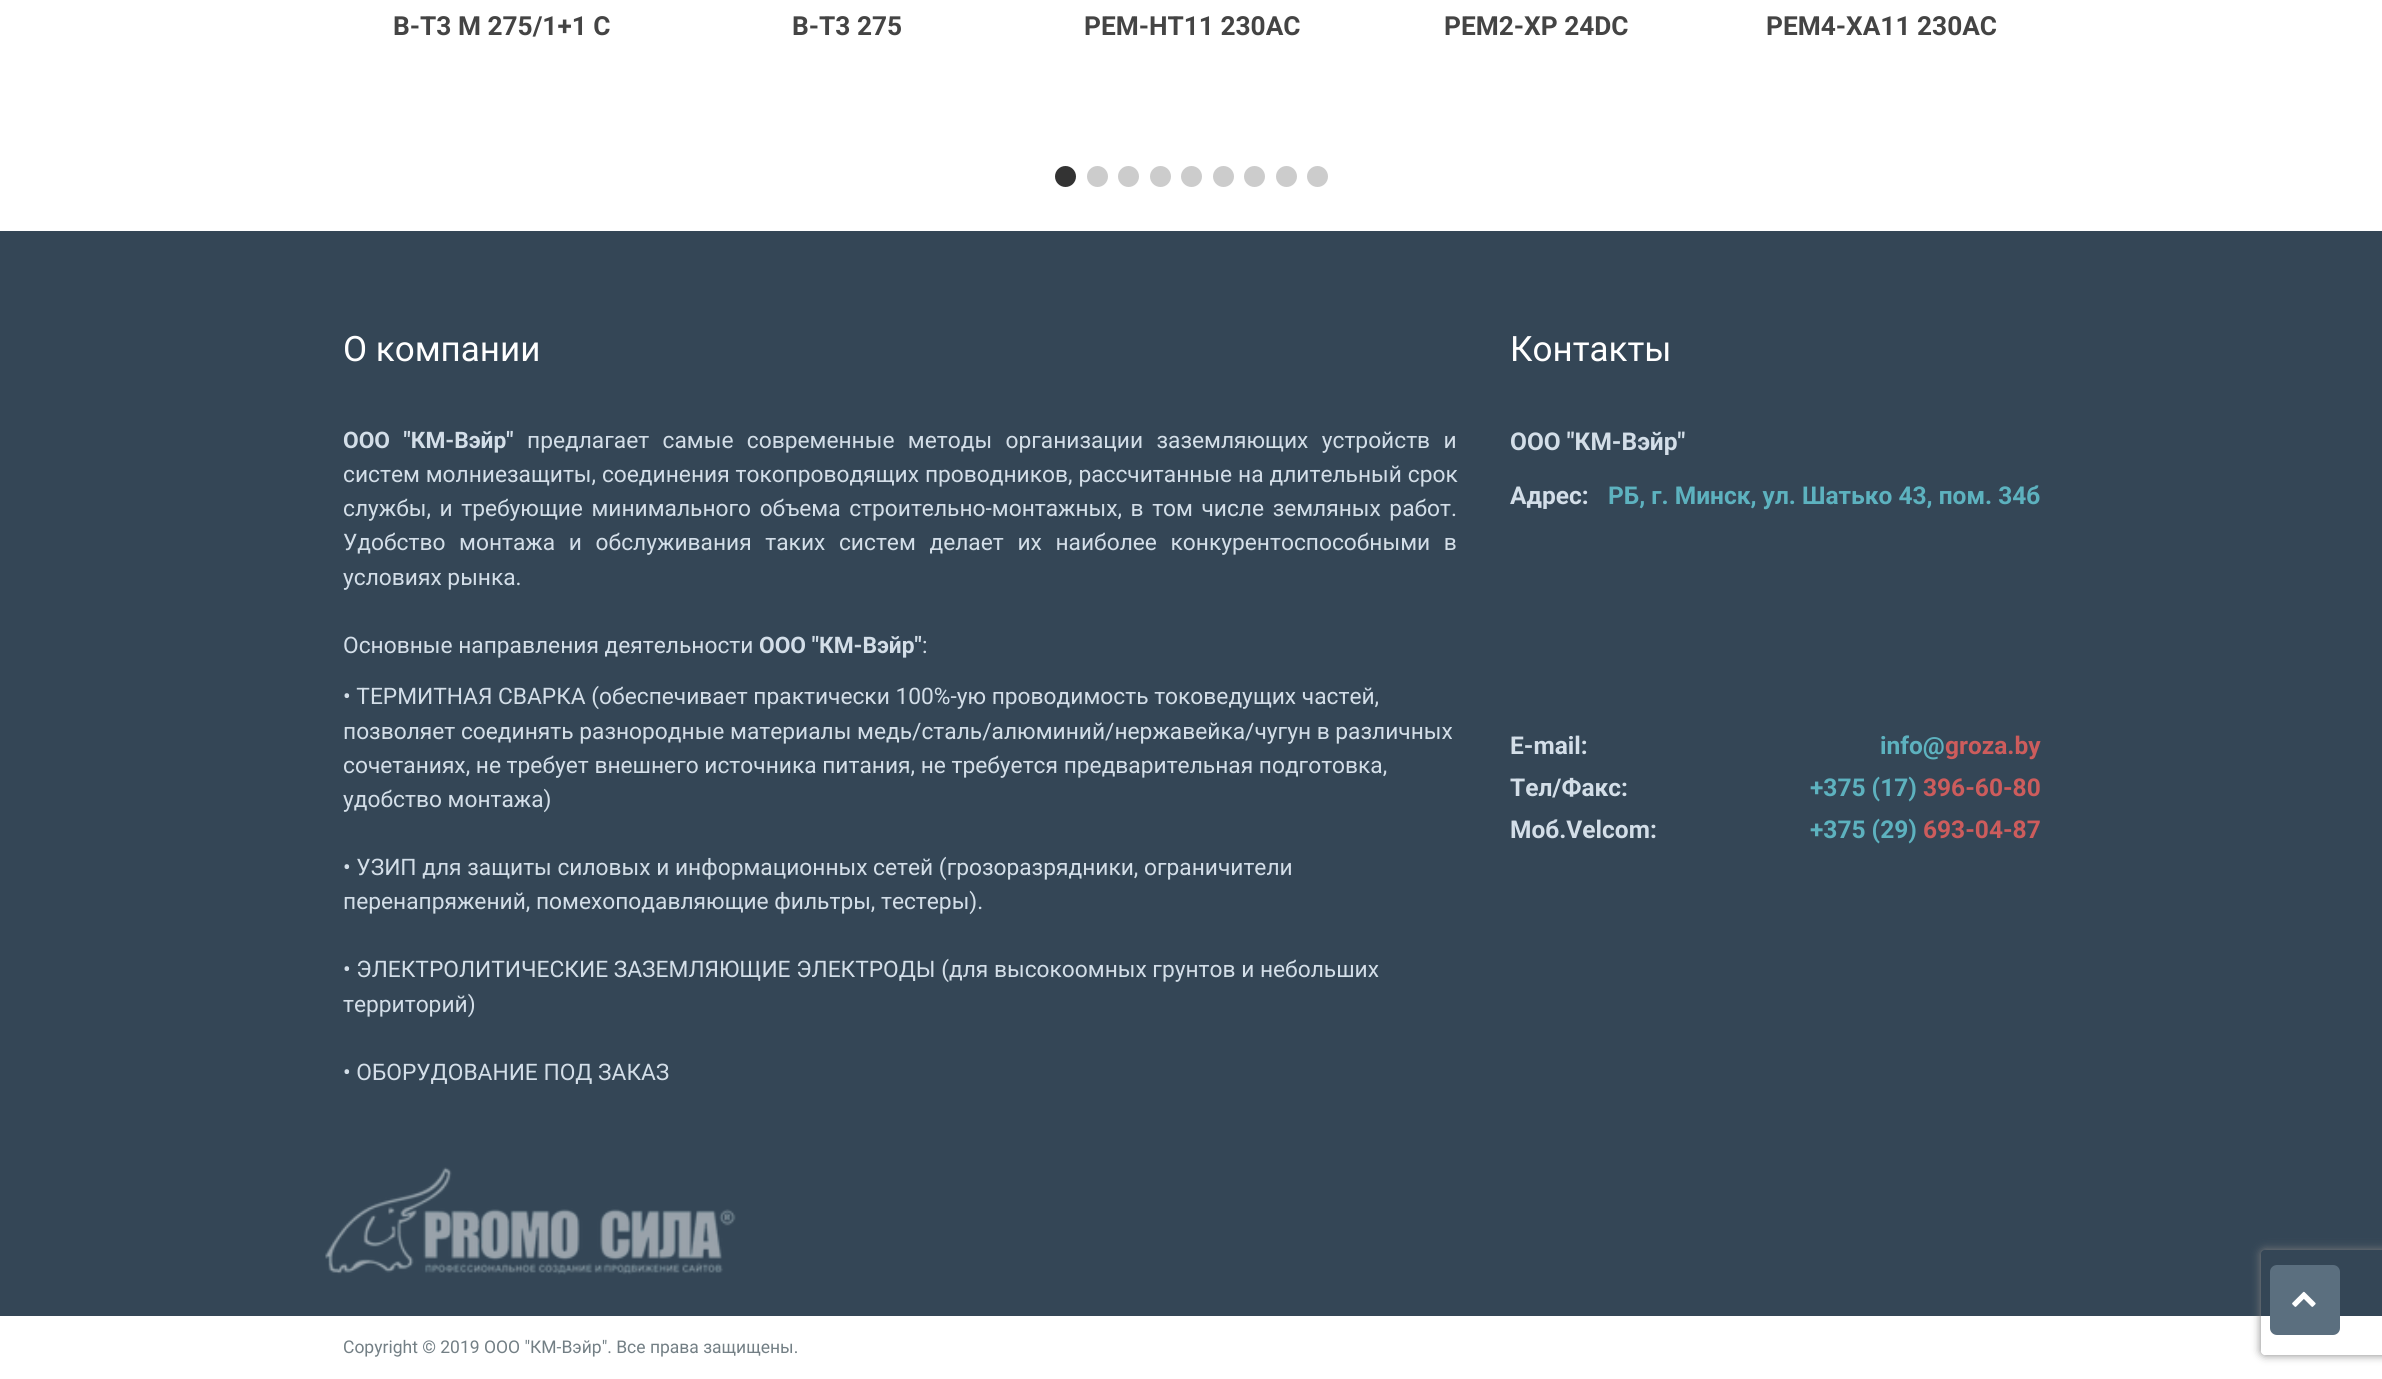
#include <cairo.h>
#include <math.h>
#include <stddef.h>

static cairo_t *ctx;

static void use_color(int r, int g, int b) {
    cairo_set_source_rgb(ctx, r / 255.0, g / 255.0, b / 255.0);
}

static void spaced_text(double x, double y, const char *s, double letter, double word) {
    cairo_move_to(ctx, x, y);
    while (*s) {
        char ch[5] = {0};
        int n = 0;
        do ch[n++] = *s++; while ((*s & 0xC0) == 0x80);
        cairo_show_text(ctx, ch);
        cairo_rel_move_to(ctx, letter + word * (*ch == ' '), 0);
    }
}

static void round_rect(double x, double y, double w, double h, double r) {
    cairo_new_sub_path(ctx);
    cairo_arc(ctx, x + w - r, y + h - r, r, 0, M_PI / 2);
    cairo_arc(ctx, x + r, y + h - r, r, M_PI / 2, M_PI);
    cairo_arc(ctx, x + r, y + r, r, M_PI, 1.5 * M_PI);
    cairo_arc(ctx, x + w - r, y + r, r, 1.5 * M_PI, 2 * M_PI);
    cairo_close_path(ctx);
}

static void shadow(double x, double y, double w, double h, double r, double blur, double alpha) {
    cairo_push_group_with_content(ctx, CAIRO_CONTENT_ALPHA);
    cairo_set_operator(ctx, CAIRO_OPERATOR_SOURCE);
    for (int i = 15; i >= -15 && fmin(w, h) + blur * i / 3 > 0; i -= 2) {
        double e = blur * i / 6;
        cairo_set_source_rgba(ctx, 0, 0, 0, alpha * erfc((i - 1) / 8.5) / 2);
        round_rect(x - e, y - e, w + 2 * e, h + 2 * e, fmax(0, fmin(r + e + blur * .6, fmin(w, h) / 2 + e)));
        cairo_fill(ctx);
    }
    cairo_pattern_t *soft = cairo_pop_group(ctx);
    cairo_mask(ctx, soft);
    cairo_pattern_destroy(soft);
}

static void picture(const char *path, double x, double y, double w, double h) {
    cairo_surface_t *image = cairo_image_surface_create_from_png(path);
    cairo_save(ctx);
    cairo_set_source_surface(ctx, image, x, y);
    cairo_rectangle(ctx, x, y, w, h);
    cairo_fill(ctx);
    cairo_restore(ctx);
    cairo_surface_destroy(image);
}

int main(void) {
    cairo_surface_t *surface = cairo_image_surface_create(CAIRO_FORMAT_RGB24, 2382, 1379);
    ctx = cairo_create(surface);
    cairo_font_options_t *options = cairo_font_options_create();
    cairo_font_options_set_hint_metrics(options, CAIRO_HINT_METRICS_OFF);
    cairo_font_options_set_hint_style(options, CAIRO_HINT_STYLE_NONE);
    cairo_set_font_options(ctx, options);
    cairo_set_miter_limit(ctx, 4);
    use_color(255, 255, 255);
    cairo_paint(ctx);
    cairo_select_font_face(ctx, "Roboto", CAIRO_FONT_SLANT_NORMAL, CAIRO_FONT_WEIGHT_BOLD);
    cairo_set_font_size(ctx, 26.25);
    use_color(68, 68, 68);
    cairo_move_to(ctx, 393, 35);
    cairo_show_text(ctx, "В-Т3 М 275/1+1 С");
    cairo_move_to(ctx, 792, 35);
    cairo_show_text(ctx, "В-Т3 275");
    cairo_move_to(ctx, 1084, 35);
    cairo_show_text(ctx, "РЕМ-НТ11 230AC");
    cairo_move_to(ctx, 1444, 35);
    cairo_show_text(ctx, "РЕМ2-ХР 24DC");
    cairo_move_to(ctx, 1766, 35);
    cairo_show_text(ctx, "РЕМ4-ХА11 230АC");
    use_color(51, 51, 51);
    cairo_new_path(ctx);
    cairo_arc(ctx, 1065.5, 176.5, 10.5, 0, 2 * M_PI);
    cairo_fill(ctx);
    use_color(204, 204, 204);
    cairo_arc(ctx, 1097.5, 176.5, 10.5, 0, 2 * M_PI);
    cairo_fill(ctx);
    cairo_arc(ctx, 1128.5, 176.5, 10.5, 0, 2 * M_PI);
    cairo_fill(ctx);
    cairo_arc(ctx, 1160.5, 176.5, 10.5, 0, 2 * M_PI);
    cairo_fill(ctx);
    cairo_arc(ctx, 1191.5, 176.5, 10.5, 0, 2 * M_PI);
    cairo_fill(ctx);
    cairo_arc(ctx, 1223.5, 176.5, 10.5, 0, 2 * M_PI);
    cairo_fill(ctx);
    cairo_arc(ctx, 1254.5, 176.5, 10.5, 0, 2 * M_PI);
    cairo_fill(ctx);
    cairo_arc(ctx, 1286.5, 176.5, 10.5, 0, 2 * M_PI);
    cairo_fill(ctx);
    cairo_arc(ctx, 1317.5, 176.5, 10.5, 0, 2 * M_PI);
    cairo_fill(ctx);
    use_color(52, 70, 86);
    cairo_rectangle(ctx, 0, 231, 2382, 1085);
    cairo_fill(ctx);
    cairo_select_font_face(ctx, "Roboto", CAIRO_FONT_SLANT_NORMAL, CAIRO_FONT_WEIGHT_NORMAL);
    cairo_set_font_size(ctx, 35);
    use_color(255, 255, 255);
    cairo_move_to(ctx, 343, 361);
    cairo_show_text(ctx, "О компании");
    cairo_select_font_face(ctx, "Roboto", CAIRO_FONT_SLANT_NORMAL, CAIRO_FONT_WEIGHT_BOLD);
    cairo_set_font_size(ctx, 22.75);
    use_color(211, 222, 232);
    spaced_text(343, 448, "ООО \"КМ-Вэйр\"", 0, 7.75);
    cairo_select_font_face(ctx, "Roboto", CAIRO_FONT_SLANT_NORMAL, CAIRO_FONT_WEIGHT_NORMAL);
    spaced_text(527, 448, "предлагает самые современные методы организации заземляющих устройств и", 0, 7.75);
    spaced_text(343, 482, "систем молниезащиты, соединения токопроводящих проводников, рассчитанные на длительный срок", 0, 0.25);
    spaced_text(343, 516, "службы, и требующие минимального объема строительно-монтажных, в том числе земляных работ.", 0, 2.9);
    spaced_text(343, 550, "Удобство монтажа и обслуживания таких систем делает их наиболее конкурентоспособными в", 0, 8);
    cairo_move_to(ctx, 343, 585);
    cairo_show_text(ctx, "условиях рынка.");
    cairo_move_to(ctx, 343, 653);
    cairo_show_text(ctx, "Основные направления деятельности");
    cairo_select_font_face(ctx, "Roboto", CAIRO_FONT_SLANT_NORMAL, CAIRO_FONT_WEIGHT_BOLD);
    cairo_move_to(ctx, 759, 653);
    cairo_show_text(ctx, "ООО \"КМ-Вэйр\"");
    cairo_select_font_face(ctx, "Roboto", CAIRO_FONT_SLANT_NORMAL, CAIRO_FONT_WEIGHT_NORMAL);
    cairo_move_to(ctx, 922, 653);
    cairo_show_text(ctx, ":");
    cairo_move_to(ctx, 343, 704);
    cairo_show_text(ctx, "• ТЕРМИТНАЯ СВАРКА (обеспечивает практически 100%-ую проводимость токоведущих частей,");
    cairo_move_to(ctx, 343, 739);
    cairo_show_text(ctx, "позволяет соединять разнородные материалы медь/сталь/алюминий/нержавейка/чугун в различных");
    cairo_move_to(ctx, 343, 773);
    cairo_show_text(ctx, "сочетаниях, не требует внешнего источника питания, не требуется предварительная подготовка,");
    cairo_move_to(ctx, 343, 807);
    cairo_show_text(ctx, "удобство монтажа)");
    cairo_move_to(ctx, 343, 875);
    cairo_show_text(ctx, "• УЗИП для защиты силовых и информационных сетей (грозоразрядники, ограничители");
    cairo_move_to(ctx, 343, 909);
    cairo_show_text(ctx, "перенапряжений, помехоподавляющие фильтры, тестеры).");
    cairo_move_to(ctx, 343, 977);
    cairo_show_text(ctx, "• ЭЛЕКТРОЛИТИЧЕСКИЕ ЗАЗЕМЛЯЮЩИЕ ЭЛЕКТРОДЫ (для высокоомных грунтов и небольших");
    cairo_move_to(ctx, 343, 1012);
    cairo_show_text(ctx, "территорий)");
    cairo_move_to(ctx, 343, 1080);
    cairo_show_text(ctx, "• ОБОРУДОВАНИЕ ПОД ЗАКАЗ");
    cairo_set_font_size(ctx, 35);
    use_color(255, 255, 255);
    cairo_move_to(ctx, 1510, 361);
    cairo_show_text(ctx, "Контакты");
    cairo_select_font_face(ctx, "Roboto", CAIRO_FONT_SLANT_NORMAL, CAIRO_FONT_WEIGHT_BOLD);
    cairo_set_font_size(ctx, 24.5);
    use_color(211, 222, 232);
    cairo_move_to(ctx, 1510, 450);
    cairo_show_text(ctx, "ООО \"КМ-Вэйр\"");
    cairo_move_to(ctx, 1510, 504);
    cairo_show_text(ctx, "Адрес:");
    use_color(93, 178, 191);
    cairo_move_to(ctx, 1608, 504);
    cairo_show_text(ctx, "РБ, г. Минск, ул. Шатько 43, пом. 34б");
    use_color(211, 222, 232);
    cairo_move_to(ctx, 1510, 754);
    cairo_show_text(ctx, "E-mail:");
    use_color(93, 178, 191);
    cairo_move_to(ctx, 1880, 754);
    cairo_show_text(ctx, "info@");
    use_color(205, 92, 92);
    cairo_move_to(ctx, 1945, 754);
    cairo_show_text(ctx, "groza.by");
    use_color(211, 222, 232);
    cairo_move_to(ctx, 1510, 796);
    cairo_show_text(ctx, "Тел/Факс:");
    use_color(93, 178, 191);
    cairo_move_to(ctx, 1810, 796);
    cairo_show_text(ctx, "+375 (17)");
    use_color(205, 92, 92);
    cairo_move_to(ctx, 1923, 796);
    cairo_show_text(ctx, "396-60-80");
    use_color(211, 222, 232);
    cairo_move_to(ctx, 1510, 838);
    cairo_show_text(ctx, "Моб.Velcom:");
    use_color(93, 178, 191);
    cairo_move_to(ctx, 1810, 838);
    cairo_show_text(ctx, "+375 (29)");
    use_color(205, 92, 92);
    cairo_move_to(ctx, 1923, 838);
    cairo_show_text(ctx, "693-04-87");
    picture("img1.png", 325, 1167, 411, 108);
    cairo_select_font_face(ctx, "Roboto", CAIRO_FONT_SLANT_NORMAL, CAIRO_FONT_WEIGHT_NORMAL);
    cairo_set_font_size(ctx, 17.5);
    use_color(115, 127, 133);
    cairo_move_to(ctx, 343, 1353);
    cairo_show_text(ctx, "Copyright © 2019 ООО \"КМ-Вэйр\". Все права защищены.");
    cairo_save(ctx);
    cairo_set_fill_rule(ctx, CAIRO_FILL_RULE_EVEN_ODD);
    cairo_new_path(ctx);
    cairo_move_to(ctx, 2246, 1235);
    cairo_line_to(ctx, 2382, 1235);
    cairo_line_to(ctx, 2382, 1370);
    cairo_line_to(ctx, 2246, 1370);
    cairo_close_path(ctx);
    cairo_move_to(ctx, 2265, 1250);
    cairo_line_to(ctx, 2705, 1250);
    cairo_curve_to(ctx, 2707, 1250, 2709, 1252, 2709, 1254);
    cairo_line_to(ctx, 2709, 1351);
    cairo_curve_to(ctx, 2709, 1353, 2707, 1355, 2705, 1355);
    cairo_line_to(ctx, 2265, 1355);
    cairo_curve_to(ctx, 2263, 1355, 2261, 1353, 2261, 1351);
    cairo_line_to(ctx, 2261, 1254);
    cairo_curve_to(ctx, 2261, 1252, 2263, 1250, 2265, 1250);
    cairo_close_path(ctx);
    cairo_clip(ctx);
    use_color(128, 128, 128);
    shadow(2261, 1250, 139, 105, 4, 4.5, 1);
    cairo_restore(ctx);
    use_color(91, 111, 127);
    round_rect(2270, 1265, 70, 70, 7);
    cairo_fill(ctx);
    picture("img2.png", 2292, 1291, 24, 16);
    cairo_surface_write_to_png(surface, "result.png");
    cairo_font_options_destroy(options);
    cairo_destroy(ctx);
    cairo_surface_destroy(surface);
    return 0;
}
